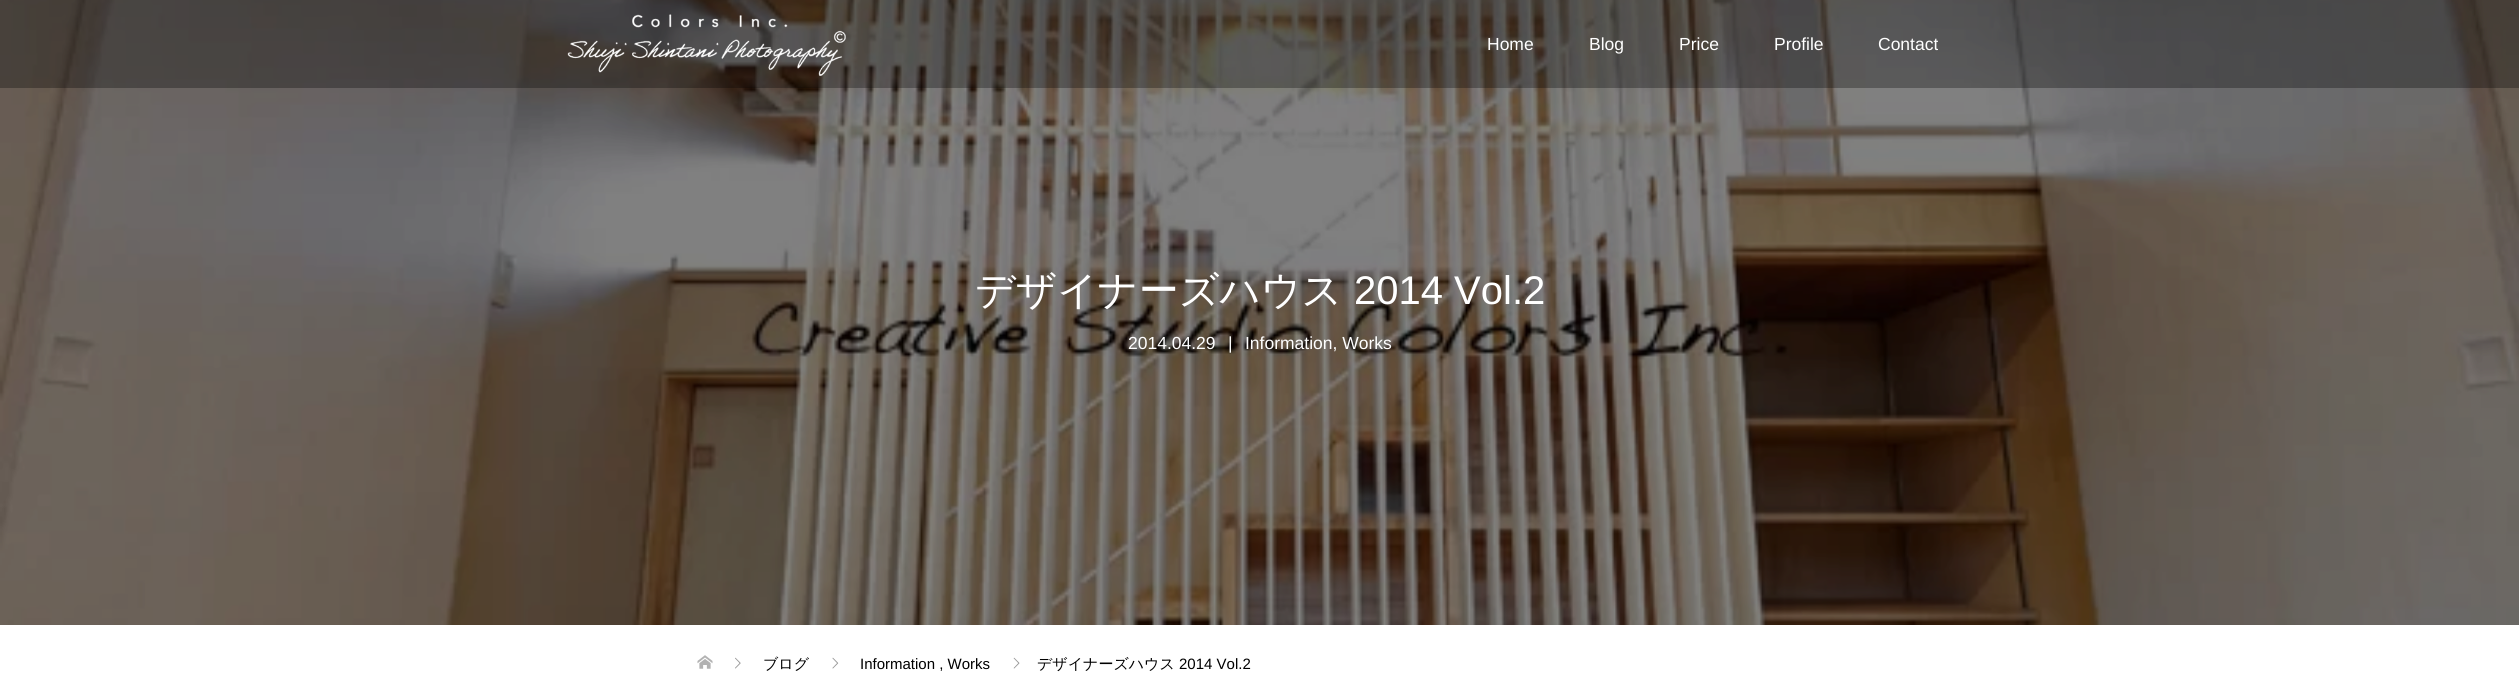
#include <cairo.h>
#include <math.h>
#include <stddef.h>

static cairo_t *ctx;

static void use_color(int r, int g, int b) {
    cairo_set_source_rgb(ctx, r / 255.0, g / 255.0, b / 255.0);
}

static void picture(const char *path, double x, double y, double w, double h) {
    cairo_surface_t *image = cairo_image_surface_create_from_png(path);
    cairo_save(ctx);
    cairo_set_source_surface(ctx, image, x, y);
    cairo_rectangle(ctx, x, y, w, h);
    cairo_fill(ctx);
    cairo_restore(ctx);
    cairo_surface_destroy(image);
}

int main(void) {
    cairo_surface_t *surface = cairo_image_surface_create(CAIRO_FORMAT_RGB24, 2519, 677);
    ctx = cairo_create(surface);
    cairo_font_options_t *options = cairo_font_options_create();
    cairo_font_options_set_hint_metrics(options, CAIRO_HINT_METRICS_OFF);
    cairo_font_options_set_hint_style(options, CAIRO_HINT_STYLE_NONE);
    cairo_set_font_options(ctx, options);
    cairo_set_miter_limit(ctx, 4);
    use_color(255, 255, 255);
    cairo_paint(ctx);
    picture("img1.png", 0, 0, 2519, 625);
    cairo_set_source_rgba(ctx, 0, 0, 0, 0.3);
    cairo_rectangle(ctx, 0, 0, 2519, 88);
    cairo_fill(ctx);
    picture("img2.png", 567, 14, 279, 63);
    cairo_select_font_face(ctx, "Liberation Sans", CAIRO_FONT_SLANT_NORMAL, CAIRO_FONT_WEIGHT_NORMAL);
    cairo_set_font_size(ctx, 17.5);
    use_color(255, 255, 255);
    cairo_move_to(ctx, 1487, 50);
    cairo_show_text(ctx, "Home");
    cairo_move_to(ctx, 1589, 50);
    cairo_show_text(ctx, "Blog");
    cairo_move_to(ctx, 1679, 50);
    cairo_show_text(ctx, "Price");
    cairo_move_to(ctx, 1774, 50);
    cairo_show_text(ctx, "Profile");
    cairo_move_to(ctx, 1878, 50);
    cairo_show_text(ctx, "Contact");
    cairo_select_font_face(ctx, "WenQuanYi Zen Hei Medium", CAIRO_FONT_SLANT_NORMAL, CAIRO_FONT_WEIGHT_NORMAL);
    cairo_set_font_size(ctx, 40);
    cairo_move_to(ctx, 975, 304);
    cairo_show_text(ctx, "デザイナーズハウス");
    cairo_select_font_face(ctx, "Liberation Sans", CAIRO_FONT_SLANT_NORMAL, CAIRO_FONT_WEIGHT_NORMAL);
    cairo_move_to(ctx, 1354, 304);
    cairo_show_text(ctx, "2014 Vol.2");
    cairo_set_font_size(ctx, 17.5);
    cairo_move_to(ctx, 1128, 349);
    cairo_show_text(ctx, "2014.04.29");
    cairo_move_to(ctx, 1228, 349);
    cairo_show_text(ctx, "|");
    cairo_move_to(ctx, 1245, 349);
    cairo_show_text(ctx, "Information, Works");
    picture("img3.png", 697, 655, 16, 14);
    picture("img4.png", 735, 657, 6, 12);
    cairo_select_font_face(ctx, "WenQuanYi Zen Hei Medium", CAIRO_FONT_SLANT_NORMAL, CAIRO_FONT_WEIGHT_NORMAL);
    cairo_set_font_size(ctx, 15);
    use_color(0, 0, 0);
    cairo_move_to(ctx, 763, 669);
    cairo_show_text(ctx, "ブログ");
    picture("img5.png", 832, 657, 7, 12);
    cairo_select_font_face(ctx, "Liberation Sans", CAIRO_FONT_SLANT_NORMAL, CAIRO_FONT_WEIGHT_NORMAL);
    cairo_move_to(ctx, 860, 669);
    cairo_show_text(ctx, "Information , Works");
    picture("img6.png", 1013, 657, 7, 12);
    cairo_select_font_face(ctx, "WenQuanYi Zen Hei Medium", CAIRO_FONT_SLANT_NORMAL, CAIRO_FONT_WEIGHT_NORMAL);
    cairo_move_to(ctx, 1037, 669);
    cairo_show_text(ctx, "デザイナーズハウス");
    cairo_select_font_face(ctx, "Liberation Sans", CAIRO_FONT_SLANT_NORMAL, CAIRO_FONT_WEIGHT_NORMAL);
    cairo_move_to(ctx, 1179, 669);
    cairo_show_text(ctx, "2014 Vol.2");
    cairo_surface_write_to_png(surface, "result.png");
    cairo_font_options_destroy(options);
    cairo_destroy(ctx);
    cairo_surface_destroy(surface);
    return 0;
}
